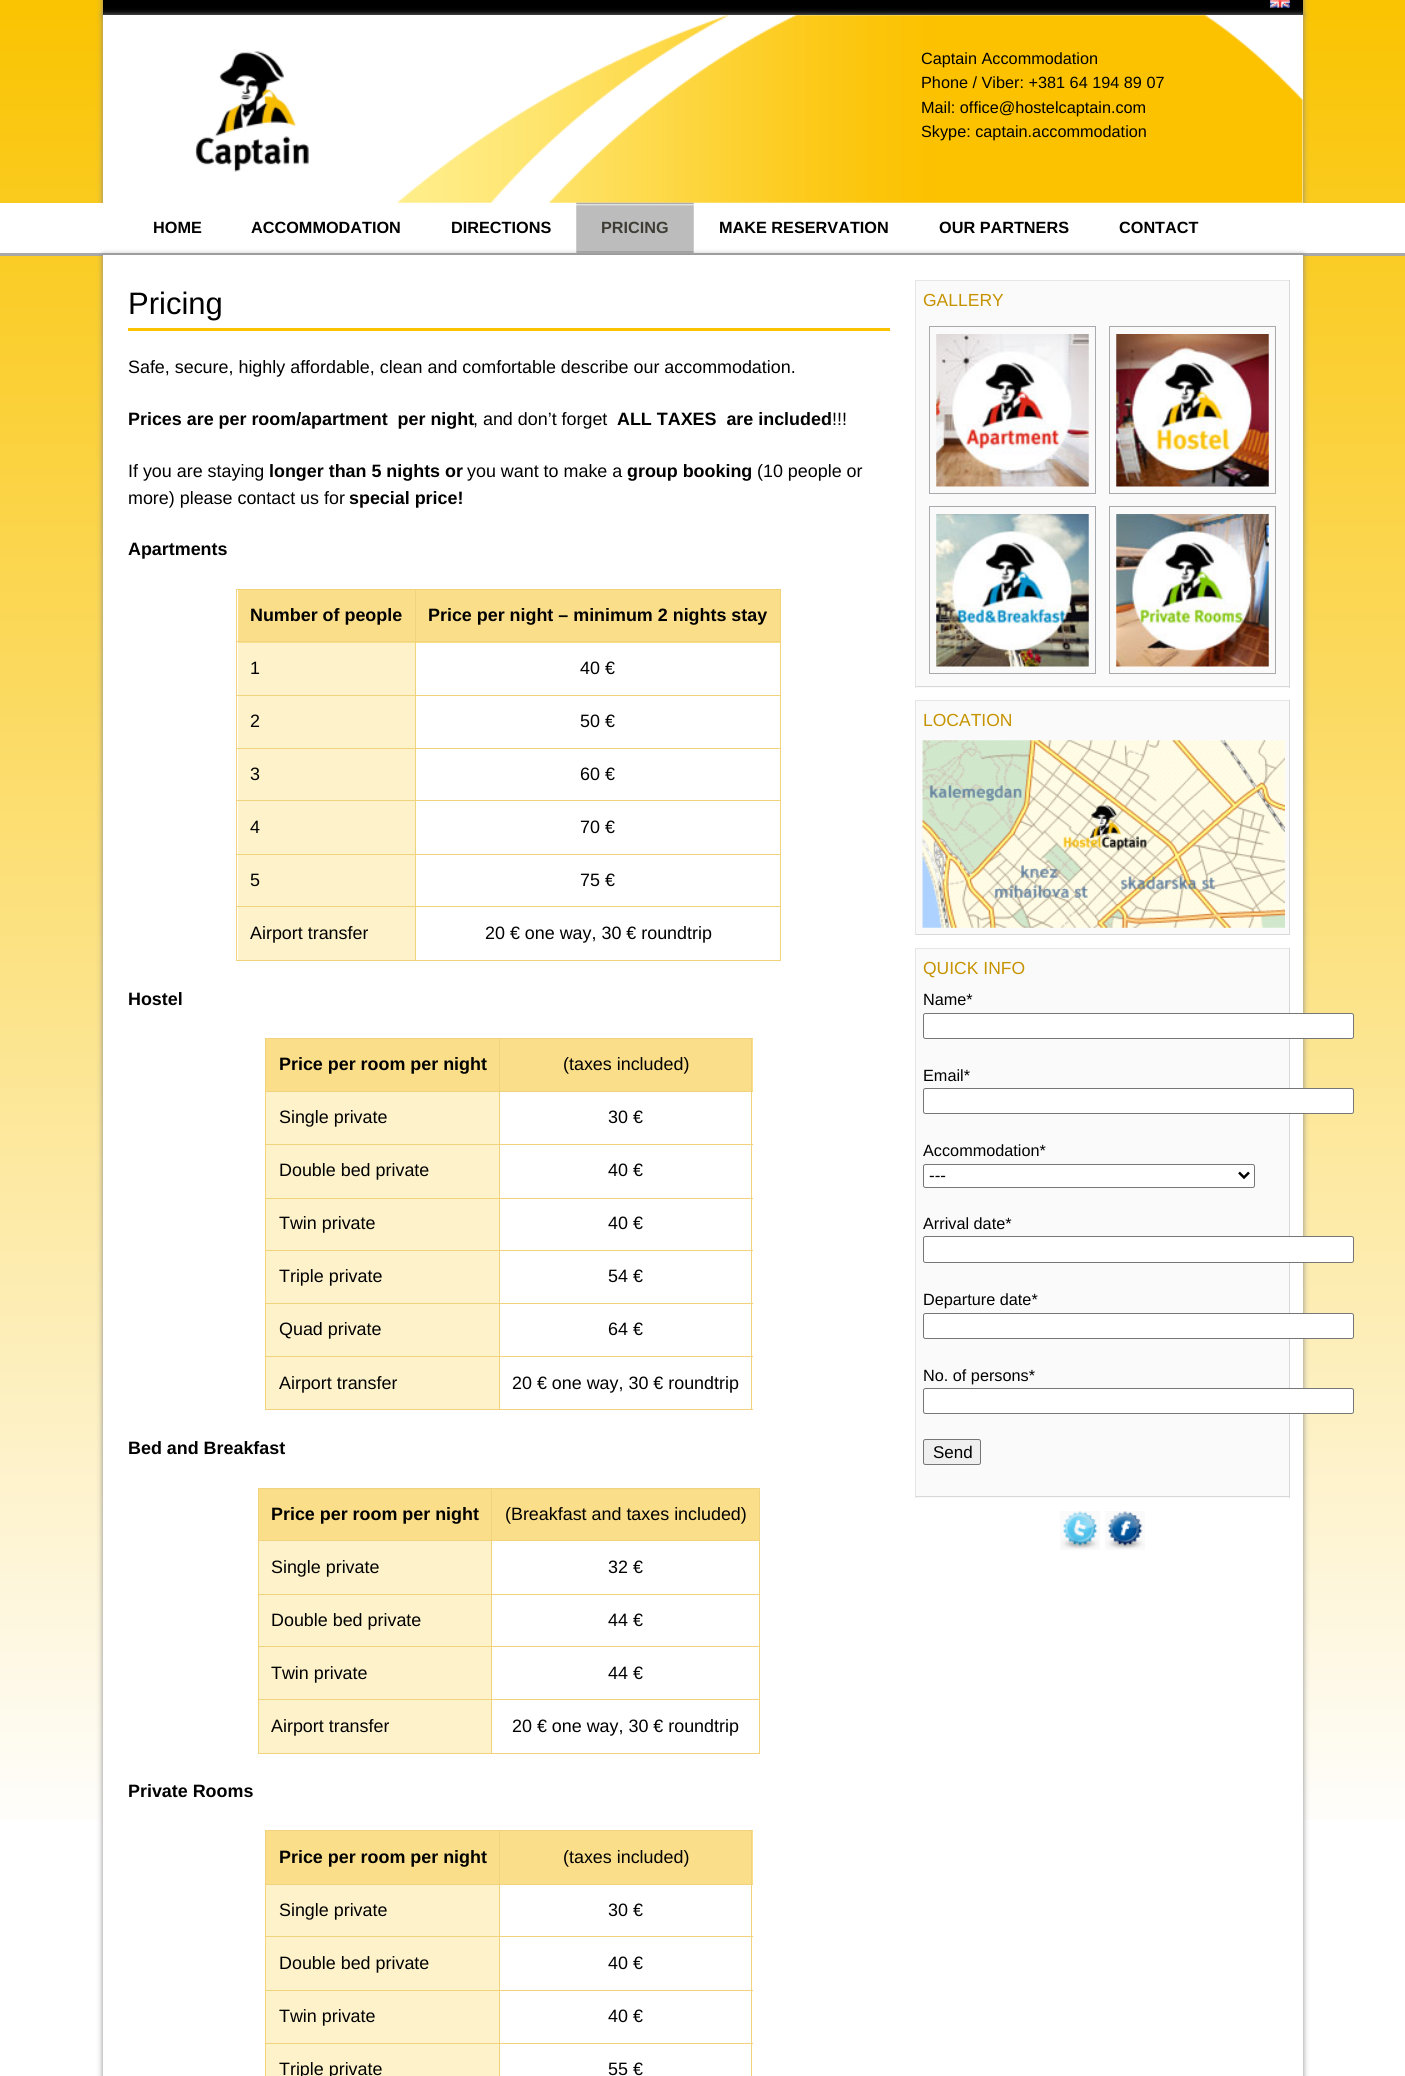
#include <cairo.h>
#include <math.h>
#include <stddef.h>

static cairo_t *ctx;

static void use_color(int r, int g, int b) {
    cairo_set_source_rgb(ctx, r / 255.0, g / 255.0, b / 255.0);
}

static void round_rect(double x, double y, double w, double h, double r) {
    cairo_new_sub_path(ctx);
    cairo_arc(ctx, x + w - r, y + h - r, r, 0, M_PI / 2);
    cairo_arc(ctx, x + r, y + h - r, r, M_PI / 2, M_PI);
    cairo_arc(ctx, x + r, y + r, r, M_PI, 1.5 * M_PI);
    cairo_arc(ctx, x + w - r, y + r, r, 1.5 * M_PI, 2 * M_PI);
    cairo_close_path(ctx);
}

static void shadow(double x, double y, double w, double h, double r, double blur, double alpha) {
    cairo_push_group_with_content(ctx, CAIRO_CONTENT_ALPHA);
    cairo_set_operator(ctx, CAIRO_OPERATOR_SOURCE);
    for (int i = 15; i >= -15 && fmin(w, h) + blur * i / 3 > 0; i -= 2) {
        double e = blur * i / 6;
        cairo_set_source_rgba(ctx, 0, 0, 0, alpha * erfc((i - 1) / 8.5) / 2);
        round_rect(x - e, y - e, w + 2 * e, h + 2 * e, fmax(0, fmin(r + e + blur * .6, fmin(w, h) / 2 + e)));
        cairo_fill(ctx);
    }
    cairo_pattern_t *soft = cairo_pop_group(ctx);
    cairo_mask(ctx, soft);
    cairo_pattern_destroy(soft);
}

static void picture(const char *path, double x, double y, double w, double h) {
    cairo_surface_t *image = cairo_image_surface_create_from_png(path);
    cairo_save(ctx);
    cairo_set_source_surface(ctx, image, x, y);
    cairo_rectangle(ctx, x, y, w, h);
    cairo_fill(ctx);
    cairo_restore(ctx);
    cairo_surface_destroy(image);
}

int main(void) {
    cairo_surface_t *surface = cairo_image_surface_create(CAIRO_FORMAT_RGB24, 1405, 2076);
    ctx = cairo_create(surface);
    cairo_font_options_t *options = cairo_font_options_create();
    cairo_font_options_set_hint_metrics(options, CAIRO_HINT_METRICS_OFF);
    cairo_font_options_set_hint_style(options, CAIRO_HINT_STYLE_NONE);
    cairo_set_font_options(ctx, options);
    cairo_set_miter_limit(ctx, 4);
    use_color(255, 255, 255);
    cairo_paint(ctx);
    picture("img1.png", 0, 0, 1405, 1820);
    use_color(136, 136, 136);
    shadow(103, -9, 1200, 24, 0, 3, 1);
    use_color(0, 0, 0);
    cairo_rectangle(ctx, 103, 0, 1200, 15);
    cairo_fill(ctx);
    use_color(136, 136, 136);
    shadow(103, 15, 1200, 188, 0, 3, 1);
    picture("img2.png", 1270, 0, 20, 8);
    use_color(255, 255, 255);
    cairo_rectangle(ctx, 103, 15, 1200, 188);
    cairo_fill(ctx);
    picture("img3.png", 397, 15, 906, 188);
    picture("img4.png", 195, 51, 114, 121);
    cairo_select_font_face(ctx, "Liberation Sans", CAIRO_FONT_SLANT_NORMAL, CAIRO_FONT_WEIGHT_NORMAL);
    cairo_set_font_size(ctx, 16.25);
    use_color(0, 0, 0);
    cairo_move_to(ctx, 921, 64);
    cairo_show_text(ctx, "Captain Accommodation");
    cairo_move_to(ctx, 921, 88);
    cairo_show_text(ctx, "Phone / Viber: +381 64 194 89 07");
    cairo_move_to(ctx, 921, 113);
    cairo_show_text(ctx, "Mail: office@hostelcaptain.com");
    cairo_move_to(ctx, 921, 137);
    cairo_show_text(ctx, "Skype: captain.accommodation");
    use_color(255, 255, 255);
    cairo_rectangle(ctx, 0, 203, 1405, 50);
    cairo_fill(ctx);
    use_color(168, 168, 168);
    cairo_rectangle(ctx, 0, 253, 1405, 3);
    cairo_fill(ctx);
    cairo_select_font_face(ctx, "Liberation Sans", CAIRO_FONT_SLANT_NORMAL, CAIRO_FONT_WEIGHT_BOLD);
    use_color(0, 0, 0);
    cairo_move_to(ctx, 153, 233);
    cairo_show_text(ctx, "HOME");
    cairo_move_to(ctx, 251, 233);
    cairo_show_text(ctx, "ACCOMMODATION");
    cairo_move_to(ctx, 451, 233);
    cairo_show_text(ctx, "DIRECTIONS");
    use_color(136, 136, 136);
    shadow(103, 255, 1200, 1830, 0, 3, 1);
    use_color(255, 255, 255);
    cairo_rectangle(ctx, 576, 249, 118, 4);
    cairo_fill(ctx);
    picture("img5.png", 576, 202, 118, 51);
    use_color(62, 62, 54);
    cairo_move_to(ctx, 601, 233);
    cairo_show_text(ctx, "PRICING");
    use_color(0, 0, 0);
    cairo_move_to(ctx, 719, 233);
    cairo_show_text(ctx, "MAKE RESERVATION");
    cairo_move_to(ctx, 939, 233);
    cairo_show_text(ctx, "OUR PARTNERS");
    cairo_move_to(ctx, 1119, 233);
    cairo_show_text(ctx, "CONTACT");
    use_color(255, 255, 255);
    cairo_rectangle(ctx, 103, 255, 1200, 1821);
    cairo_fill(ctx);
    use_color(252, 194, 0);
    cairo_rectangle(ctx, 128, 328, 762, 3);
    cairo_fill(ctx);
    cairo_select_font_face(ctx, "Liberation Sans", CAIRO_FONT_SLANT_NORMAL, CAIRO_FONT_WEIGHT_NORMAL);
    cairo_set_font_size(ctx, 31);
    use_color(0, 0, 0);
    cairo_move_to(ctx, 128, 314);
    cairo_show_text(ctx, "Pricing");
    cairo_set_font_size(ctx, 17.9);
    cairo_move_to(ctx, 128, 373);
    cairo_show_text(ctx, "Safe, secure, highly affordable, clean and comfortable describe our accommodation.");
    cairo_select_font_face(ctx, "Liberation Sans", CAIRO_FONT_SLANT_NORMAL, CAIRO_FONT_WEIGHT_BOLD);
    cairo_move_to(ctx, 128, 425);
    cairo_show_text(ctx, "Prices are per room/apartment  per night");
    cairo_select_font_face(ctx, "Liberation Sans", CAIRO_FONT_SLANT_NORMAL, CAIRO_FONT_WEIGHT_NORMAL);
    cairo_move_to(ctx, 473, 425);
    cairo_show_text(ctx, ", and don’t forget");
    cairo_select_font_face(ctx, "Liberation Sans", CAIRO_FONT_SLANT_NORMAL, CAIRO_FONT_WEIGHT_BOLD);
    cairo_move_to(ctx, 617, 425);
    cairo_show_text(ctx, "ALL TAXES  are included");
    cairo_select_font_face(ctx, "Liberation Sans", CAIRO_FONT_SLANT_NORMAL, CAIRO_FONT_WEIGHT_NORMAL);
    cairo_move_to(ctx, 832, 425);
    cairo_show_text(ctx, "!!!");
    cairo_move_to(ctx, 128, 477);
    cairo_show_text(ctx, "If you are staying");
    cairo_select_font_face(ctx, "Liberation Sans", CAIRO_FONT_SLANT_NORMAL, CAIRO_FONT_WEIGHT_BOLD);
    cairo_move_to(ctx, 269, 477);
    cairo_show_text(ctx, "longer than 5 nights or");
    cairo_select_font_face(ctx, "Liberation Sans", CAIRO_FONT_SLANT_NORMAL, CAIRO_FONT_WEIGHT_NORMAL);
    cairo_move_to(ctx, 467, 477);
    cairo_show_text(ctx, "you want to make a");
    cairo_select_font_face(ctx, "Liberation Sans", CAIRO_FONT_SLANT_NORMAL, CAIRO_FONT_WEIGHT_BOLD);
    cairo_move_to(ctx, 627, 477);
    cairo_show_text(ctx, "group booking");
    cairo_select_font_face(ctx, "Liberation Sans", CAIRO_FONT_SLANT_NORMAL, CAIRO_FONT_WEIGHT_NORMAL);
    cairo_move_to(ctx, 757, 477);
    cairo_show_text(ctx, "(10 people or");
    cairo_move_to(ctx, 128, 504);
    cairo_show_text(ctx, "more) please contact us for");
    cairo_select_font_face(ctx, "Liberation Sans", CAIRO_FONT_SLANT_NORMAL, CAIRO_FONT_WEIGHT_BOLD);
    cairo_move_to(ctx, 349, 504);
    cairo_show_text(ctx, "special price!");
    cairo_move_to(ctx, 128, 555);
    cairo_show_text(ctx, "Apartments");
    use_color(240, 211, 124);
    cairo_rectangle(ctx, 236, 589, 545, 1);
    cairo_fill(ctx);
    cairo_rectangle(ctx, 780, 589, 1, 372);
    cairo_fill(ctx);
    cairo_rectangle(ctx, 236, 960, 545, 1);
    cairo_fill(ctx);
    cairo_rectangle(ctx, 236, 589, 1, 372);
    cairo_fill(ctx);
    use_color(250, 222, 137);
    cairo_rectangle(ctx, 238, 590, 542, 53);
    cairo_fill(ctx);
    use_color(0, 0, 0);
    cairo_move_to(ctx, 250, 621);
    cairo_show_text(ctx, "Number of people");
    use_color(240, 211, 124);
    cairo_rectangle(ctx, 415, 641, 366, 1);
    cairo_fill(ctx);
    cairo_rectangle(ctx, 415, 695, 366, 1);
    cairo_fill(ctx);
    cairo_rectangle(ctx, 415, 748, 366, 1);
    cairo_fill(ctx);
    cairo_rectangle(ctx, 415, 800, 366, 1);
    cairo_fill(ctx);
    cairo_rectangle(ctx, 415, 854, 366, 1);
    cairo_fill(ctx);
    use_color(253, 242, 201);
    cairo_rectangle(ctx, 238, 855, 177, 105);
    cairo_fill(ctx);
    use_color(240, 211, 124);
    cairo_rectangle(ctx, 415, 906, 366, 1);
    cairo_fill(ctx);
    cairo_rectangle(ctx, 415, 906, 1, 55);
    cairo_fill(ctx);
    cairo_rectangle(ctx, 236, 906, 180, 1);
    cairo_fill(ctx);
    cairo_rectangle(ctx, 415, 854, 1, 54);
    cairo_fill(ctx);
    cairo_rectangle(ctx, 236, 854, 180, 1);
    cairo_fill(ctx);
    cairo_rectangle(ctx, 415, 800, 1, 55);
    cairo_fill(ctx);
    cairo_rectangle(ctx, 236, 800, 180, 1);
    cairo_fill(ctx);
    cairo_rectangle(ctx, 415, 748, 1, 53);
    cairo_fill(ctx);
    cairo_rectangle(ctx, 236, 748, 180, 1);
    cairo_fill(ctx);
    cairo_rectangle(ctx, 415, 695, 1, 54);
    cairo_fill(ctx);
    cairo_rectangle(ctx, 236, 695, 180, 1);
    cairo_fill(ctx);
    cairo_rectangle(ctx, 415, 641, 1, 55);
    cairo_fill(ctx);
    cairo_rectangle(ctx, 236, 641, 180, 1);
    cairo_fill(ctx);
    cairo_rectangle(ctx, 415, 589, 1, 54);
    cairo_fill(ctx);
    use_color(0, 0, 0);
    cairo_move_to(ctx, 428, 621);
    cairo_show_text(ctx, "Price per night – minimum 2 nights stay");
    use_color(253, 242, 201);
    cairo_rectangle(ctx, 238, 643, 177, 52);
    cairo_fill(ctx);
    cairo_select_font_face(ctx, "Liberation Sans", CAIRO_FONT_SLANT_NORMAL, CAIRO_FONT_WEIGHT_NORMAL);
    use_color(0, 0, 0);
    cairo_move_to(ctx, 250, 674);
    cairo_show_text(ctx, "1");
    cairo_move_to(ctx, 580, 674);
    cairo_show_text(ctx, "40 €");
    use_color(253, 242, 201);
    cairo_rectangle(ctx, 238, 696, 177, 52);
    cairo_fill(ctx);
    use_color(0, 0, 0);
    cairo_move_to(ctx, 250, 727);
    cairo_show_text(ctx, "2");
    cairo_move_to(ctx, 580, 727);
    cairo_show_text(ctx, "50 €");
    use_color(253, 242, 201);
    cairo_rectangle(ctx, 238, 749, 177, 51);
    cairo_fill(ctx);
    use_color(0, 0, 0);
    cairo_move_to(ctx, 250, 780);
    cairo_show_text(ctx, "3");
    cairo_move_to(ctx, 580, 780);
    cairo_show_text(ctx, "60 €");
    use_color(253, 242, 201);
    cairo_rectangle(ctx, 238, 801, 177, 53);
    cairo_fill(ctx);
    use_color(0, 0, 0);
    cairo_move_to(ctx, 250, 833);
    cairo_show_text(ctx, "4");
    cairo_move_to(ctx, 580, 833);
    cairo_show_text(ctx, "70 €");
    cairo_move_to(ctx, 250, 886);
    cairo_show_text(ctx, "5");
    cairo_move_to(ctx, 580, 886);
    cairo_show_text(ctx, "75 €");
    cairo_move_to(ctx, 250, 939);
    cairo_show_text(ctx, "Airport transfer");
    cairo_move_to(ctx, 485, 939);
    cairo_show_text(ctx, "20 € one way, 30 € roundtrip");
    cairo_select_font_face(ctx, "Liberation Sans", CAIRO_FONT_SLANT_NORMAL, CAIRO_FONT_WEIGHT_BOLD);
    cairo_move_to(ctx, 128, 1005);
    cairo_show_text(ctx, "Hostel");
    use_color(240, 211, 124);
    cairo_rectangle(ctx, 265, 1038, 488, 1);
    cairo_fill(ctx);
    use_color(250, 222, 137);
    cairo_rectangle(ctx, 266, 1039, 487, 52);
    cairo_fill(ctx);
    use_color(240, 211, 124);
    cairo_rectangle(ctx, 751, 1038, 1, 372);
    cairo_fill(ctx);
    cairo_rectangle(ctx, 265, 1409, 488, 1);
    cairo_fill(ctx);
    cairo_rectangle(ctx, 265, 1038, 1, 372);
    cairo_fill(ctx);
    use_color(0, 0, 0);
    cairo_move_to(ctx, 279, 1070);
    cairo_show_text(ctx, "Price per room per night");
    use_color(240, 211, 124);
    cairo_rectangle(ctx, 499, 1091, 254, 1);
    cairo_fill(ctx);
    cairo_rectangle(ctx, 499, 1144, 254, 1);
    cairo_fill(ctx);
    cairo_rectangle(ctx, 499, 1198, 254, 1);
    cairo_fill(ctx);
    cairo_rectangle(ctx, 499, 1250, 254, 1);
    cairo_fill(ctx);
    cairo_rectangle(ctx, 499, 1303, 254, 1);
    cairo_fill(ctx);
    cairo_rectangle(ctx, 499, 1356, 254, 1);
    cairo_fill(ctx);
    cairo_rectangle(ctx, 499, 1356, 1, 54);
    cairo_fill(ctx);
    cairo_rectangle(ctx, 265, 1356, 235, 1);
    cairo_fill(ctx);
    cairo_rectangle(ctx, 499, 1303, 1, 55);
    cairo_fill(ctx);
    cairo_rectangle(ctx, 265, 1303, 235, 1);
    cairo_fill(ctx);
    cairo_rectangle(ctx, 499, 1250, 1, 54);
    cairo_fill(ctx);
    cairo_rectangle(ctx, 265, 1250, 235, 1);
    cairo_fill(ctx);
    cairo_rectangle(ctx, 499, 1198, 1, 53);
    cairo_fill(ctx);
    cairo_rectangle(ctx, 265, 1198, 235, 1);
    cairo_fill(ctx);
    cairo_rectangle(ctx, 499, 1144, 1, 55);
    cairo_fill(ctx);
    cairo_rectangle(ctx, 265, 1144, 235, 1);
    cairo_fill(ctx);
    cairo_rectangle(ctx, 499, 1091, 1, 54);
    cairo_fill(ctx);
    cairo_rectangle(ctx, 265, 1091, 235, 1);
    cairo_fill(ctx);
    cairo_rectangle(ctx, 499, 1038, 1, 55);
    cairo_fill(ctx);
    cairo_select_font_face(ctx, "Liberation Sans", CAIRO_FONT_SLANT_NORMAL, CAIRO_FONT_WEIGHT_NORMAL);
    use_color(0, 0, 0);
    cairo_move_to(ctx, 563, 1070);
    cairo_show_text(ctx, "(taxes included)");
    use_color(253, 242, 201);
    cairo_rectangle(ctx, 266, 1092, 233, 52);
    cairo_fill(ctx);
    use_color(0, 0, 0);
    cairo_move_to(ctx, 279, 1123);
    cairo_show_text(ctx, "Single private");
    cairo_move_to(ctx, 608, 1123);
    cairo_show_text(ctx, "30 €");
    use_color(253, 242, 201);
    cairo_rectangle(ctx, 266, 1145, 233, 53);
    cairo_fill(ctx);
    use_color(0, 0, 0);
    cairo_move_to(ctx, 279, 1176);
    cairo_show_text(ctx, "Double bed private");
    cairo_move_to(ctx, 608, 1176);
    cairo_show_text(ctx, "40 €");
    use_color(253, 242, 201);
    cairo_rectangle(ctx, 266, 1199, 233, 51);
    cairo_fill(ctx);
    use_color(0, 0, 0);
    cairo_move_to(ctx, 279, 1229);
    cairo_show_text(ctx, "Twin private");
    cairo_move_to(ctx, 608, 1229);
    cairo_show_text(ctx, "40 €");
    use_color(253, 242, 201);
    cairo_rectangle(ctx, 266, 1251, 233, 52);
    cairo_fill(ctx);
    use_color(0, 0, 0);
    cairo_move_to(ctx, 279, 1282);
    cairo_show_text(ctx, "Triple private");
    cairo_move_to(ctx, 608, 1282);
    cairo_show_text(ctx, "54 €");
    use_color(253, 242, 201);
    cairo_rectangle(ctx, 266, 1304, 233, 52);
    cairo_fill(ctx);
    use_color(0, 0, 0);
    cairo_move_to(ctx, 279, 1335);
    cairo_show_text(ctx, "Quad private");
    cairo_move_to(ctx, 608, 1335);
    cairo_show_text(ctx, "64 €");
    use_color(253, 242, 201);
    cairo_rectangle(ctx, 266, 1357, 233, 52);
    cairo_fill(ctx);
    use_color(0, 0, 0);
    cairo_move_to(ctx, 279, 1389);
    cairo_show_text(ctx, "Airport transfer");
    cairo_move_to(ctx, 512, 1389);
    cairo_show_text(ctx, "20 € one way, 30 € roundtrip");
    cairo_select_font_face(ctx, "Liberation Sans", CAIRO_FONT_SLANT_NORMAL, CAIRO_FONT_WEIGHT_BOLD);
    cairo_move_to(ctx, 128, 1454);
    cairo_show_text(ctx, "Bed and Breakfast");
    use_color(240, 211, 124);
    cairo_rectangle(ctx, 258, 1488, 502, 1);
    cairo_fill(ctx);
    cairo_rectangle(ctx, 759, 1488, 1, 266);
    cairo_fill(ctx);
    cairo_rectangle(ctx, 258, 1753, 502, 1);
    cairo_fill(ctx);
    cairo_rectangle(ctx, 258, 1488, 1, 266);
    cairo_fill(ctx);
    use_color(250, 222, 137);
    cairo_rectangle(ctx, 259, 1489, 500, 51);
    cairo_fill(ctx);
    use_color(0, 0, 0);
    cairo_move_to(ctx, 271, 1520);
    cairo_show_text(ctx, "Price per room per night");
    use_color(240, 211, 124);
    cairo_rectangle(ctx, 491, 1540, 269, 1);
    cairo_fill(ctx);
    cairo_rectangle(ctx, 491, 1594, 269, 1);
    cairo_fill(ctx);
    use_color(253, 242, 201);
    cairo_rectangle(ctx, 259, 1595, 232, 104);
    cairo_fill(ctx);
    use_color(240, 211, 124);
    cairo_rectangle(ctx, 491, 1646, 269, 1);
    cairo_fill(ctx);
    cairo_rectangle(ctx, 491, 1699, 269, 1);
    cairo_fill(ctx);
    cairo_rectangle(ctx, 491, 1699, 1, 55);
    cairo_fill(ctx);
    cairo_rectangle(ctx, 258, 1699, 235, 1);
    cairo_fill(ctx);
    cairo_rectangle(ctx, 491, 1646, 1, 54);
    cairo_fill(ctx);
    cairo_rectangle(ctx, 258, 1646, 235, 1);
    cairo_fill(ctx);
    cairo_rectangle(ctx, 491, 1594, 1, 54);
    cairo_fill(ctx);
    cairo_rectangle(ctx, 258, 1594, 235, 1);
    cairo_fill(ctx);
    cairo_rectangle(ctx, 491, 1540, 1, 55);
    cairo_fill(ctx);
    cairo_rectangle(ctx, 258, 1540, 235, 1);
    cairo_fill(ctx);
    cairo_rectangle(ctx, 491, 1488, 1, 53);
    cairo_fill(ctx);
    cairo_select_font_face(ctx, "Liberation Sans", CAIRO_FONT_SLANT_NORMAL, CAIRO_FONT_WEIGHT_NORMAL);
    use_color(0, 0, 0);
    cairo_move_to(ctx, 505, 1520);
    cairo_show_text(ctx, "(Breakfast and taxes included)");
    use_color(253, 242, 201);
    cairo_rectangle(ctx, 259, 1541, 232, 53);
    cairo_fill(ctx);
    use_color(0, 0, 0);
    cairo_move_to(ctx, 271, 1573);
    cairo_show_text(ctx, "Single private");
    cairo_move_to(ctx, 608, 1573);
    cairo_show_text(ctx, "32 €");
    cairo_move_to(ctx, 271, 1626);
    cairo_show_text(ctx, "Double bed private");
    cairo_move_to(ctx, 608, 1626);
    cairo_show_text(ctx, "44 €");
    cairo_move_to(ctx, 271, 1679);
    cairo_show_text(ctx, "Twin private");
    cairo_move_to(ctx, 608, 1679);
    cairo_show_text(ctx, "44 €");
    use_color(253, 242, 201);
    cairo_rectangle(ctx, 259, 1700, 232, 53);
    cairo_fill(ctx);
    use_color(0, 0, 0);
    cairo_move_to(ctx, 271, 1732);
    cairo_show_text(ctx, "Airport transfer");
    cairo_move_to(ctx, 512, 1732);
    cairo_show_text(ctx, "20 € one way, 30 € roundtrip");
    cairo_select_font_face(ctx, "Liberation Sans", CAIRO_FONT_SLANT_NORMAL, CAIRO_FONT_WEIGHT_BOLD);
    cairo_move_to(ctx, 128, 1797);
    cairo_show_text(ctx, "Private Rooms");
    use_color(240, 211, 124);
    cairo_rectangle(ctx, 265, 1830, 488, 1);
    cairo_fill(ctx);
    use_color(250, 222, 137);
    cairo_rectangle(ctx, 266, 1831, 487, 53);
    cairo_fill(ctx);
    use_color(240, 211, 124);
    cairo_rectangle(ctx, 751, 1830, 1, 246);
    cairo_fill(ctx);
    cairo_rectangle(ctx, 265, 1830, 1, 246);
    cairo_fill(ctx);
    use_color(0, 0, 0);
    cairo_move_to(ctx, 279, 1863);
    cairo_show_text(ctx, "Price per room per night");
    use_color(240, 211, 124);
    cairo_rectangle(ctx, 499, 1884, 254, 1);
    cairo_fill(ctx);
    use_color(253, 242, 201);
    cairo_rectangle(ctx, 266, 1885, 233, 105);
    cairo_fill(ctx);
    use_color(240, 211, 124);
    cairo_rectangle(ctx, 499, 1936, 254, 1);
    cairo_fill(ctx);
    cairo_rectangle(ctx, 499, 1990, 254, 1);
    cairo_fill(ctx);
    cairo_rectangle(ctx, 499, 2043, 254, 1);
    cairo_fill(ctx);
    cairo_rectangle(ctx, 499, 2043, 1, 33);
    cairo_fill(ctx);
    cairo_rectangle(ctx, 265, 2043, 235, 1);
    cairo_fill(ctx);
    cairo_rectangle(ctx, 499, 1990, 1, 54);
    cairo_fill(ctx);
    cairo_rectangle(ctx, 265, 1990, 235, 1);
    cairo_fill(ctx);
    cairo_rectangle(ctx, 499, 1936, 1, 55);
    cairo_fill(ctx);
    cairo_rectangle(ctx, 265, 1936, 235, 1);
    cairo_fill(ctx);
    cairo_rectangle(ctx, 499, 1884, 1, 54);
    cairo_fill(ctx);
    cairo_rectangle(ctx, 265, 1884, 235, 1);
    cairo_fill(ctx);
    cairo_rectangle(ctx, 499, 1830, 1, 55);
    cairo_fill(ctx);
    cairo_select_font_face(ctx, "Liberation Sans", CAIRO_FONT_SLANT_NORMAL, CAIRO_FONT_WEIGHT_NORMAL);
    use_color(0, 0, 0);
    cairo_move_to(ctx, 563, 1863);
    cairo_show_text(ctx, "(taxes included)");
    cairo_move_to(ctx, 279, 1916);
    cairo_show_text(ctx, "Single private");
    cairo_move_to(ctx, 608, 1916);
    cairo_show_text(ctx, "30 €");
    cairo_move_to(ctx, 279, 1969);
    cairo_show_text(ctx, "Double bed private");
    cairo_move_to(ctx, 608, 1969);
    cairo_show_text(ctx, "40 €");
    use_color(253, 242, 201);
    cairo_rectangle(ctx, 266, 1991, 233, 52);
    cairo_fill(ctx);
    use_color(0, 0, 0);
    cairo_move_to(ctx, 279, 2022);
    cairo_show_text(ctx, "Twin private");
    cairo_move_to(ctx, 608, 2022);
    cairo_show_text(ctx, "40 €");
    use_color(253, 242, 201);
    cairo_rectangle(ctx, 266, 2044, 233, 32);
    cairo_fill(ctx);
    use_color(0, 0, 0);
    cairo_move_to(ctx, 279, 2075);
    cairo_show_text(ctx, "Triple private");
    cairo_move_to(ctx, 608, 2075);
    cairo_show_text(ctx, "55 €");
    use_color(250, 250, 250);
    cairo_rectangle(ctx, 916, 281, 373, 407);
    cairo_fill(ctx);
    use_color(229, 229, 229);
    cairo_rectangle(ctx, 915, 280, 375, 1);
    cairo_fill(ctx);
    use_color(216, 216, 216);
    cairo_rectangle(ctx, 1289, 280, 1, 408);
    cairo_fill(ctx);
    cairo_rectangle(ctx, 915, 686, 375, 1);
    cairo_fill(ctx);
    use_color(229, 229, 229);
    cairo_rectangle(ctx, 915, 280, 1, 408);
    cairo_fill(ctx);
    cairo_set_font_size(ctx, 17.5);
    use_color(198, 147, 0);
    cairo_move_to(ctx, 923, 306);
    cairo_show_text(ctx, "GALLERY");
    cairo_rectangle(ctx, 929.5, 326.5, 166, 167);
    use_color(169, 170, 173);
    cairo_set_line_width(ctx, 1);
    cairo_stroke(ctx);
    cairo_rectangle(ctx, 1109.5, 326.5, 166, 167);
    cairo_stroke(ctx);
    picture("img6.png", 936, 334, 153, 153);
    picture("img7.png", 1116, 334, 153, 153);
    cairo_rectangle(ctx, 929.5, 506.5, 166, 167);
    cairo_stroke(ctx);
    cairo_rectangle(ctx, 1109.5, 506.5, 166, 167);
    cairo_stroke(ctx);
    picture("img8.png", 936, 514, 153, 153);
    picture("img9.png", 1116, 514, 153, 153);
    use_color(250, 250, 250);
    cairo_rectangle(ctx, 916, 701, 373, 233);
    cairo_fill(ctx);
    use_color(229, 229, 229);
    cairo_rectangle(ctx, 915, 700, 375, 1);
    cairo_fill(ctx);
    use_color(216, 216, 216);
    cairo_rectangle(ctx, 1289, 700, 1, 235);
    cairo_fill(ctx);
    cairo_rectangle(ctx, 915, 934, 375, 1);
    cairo_fill(ctx);
    use_color(229, 229, 229);
    cairo_rectangle(ctx, 915, 700, 1, 235);
    cairo_fill(ctx);
    use_color(198, 147, 0);
    cairo_move_to(ctx, 923, 726);
    cairo_show_text(ctx, "LOCATION");
    picture("img10.png", 922, 740, 363, 188);
    use_color(250, 250, 250);
    cairo_rectangle(ctx, 916, 949, 373, 549);
    cairo_fill(ctx);
    use_color(229, 229, 229);
    cairo_rectangle(ctx, 915, 948, 375, 1);
    cairo_fill(ctx);
    use_color(216, 216, 216);
    cairo_rectangle(ctx, 1289, 948, 1, 550);
    cairo_fill(ctx);
    cairo_rectangle(ctx, 915, 1496, 375, 1);
    cairo_fill(ctx);
    use_color(229, 229, 229);
    cairo_rectangle(ctx, 915, 948, 1, 550);
    cairo_fill(ctx);
    use_color(198, 147, 0);
    cairo_move_to(ctx, 923, 974);
    cairo_show_text(ctx, "QUICK INFO");
    cairo_set_font_size(ctx, 16.25);
    use_color(0, 0, 0);
    cairo_move_to(ctx, 923, 1005);
    cairo_show_text(ctx, "Name*");
    use_color(255, 255, 255);
    round_rect(923.5, 1013.5, 430, 25, 2);
    cairo_fill_preserve(ctx);
    use_color(118, 118, 118);
    cairo_stroke(ctx);
    use_color(0, 0, 0);
    cairo_move_to(ctx, 923, 1081);
    cairo_show_text(ctx, "Email*");
    use_color(255, 255, 255);
    round_rect(923.5, 1088.5, 430, 25, 2);
    cairo_fill_preserve(ctx);
    use_color(118, 118, 118);
    cairo_stroke(ctx);
    use_color(0, 0, 0);
    cairo_move_to(ctx, 923, 1156);
    cairo_show_text(ctx, "Accommodation*");
    use_color(255, 255, 255);
    round_rect(923.5, 1164.5, 331, 23, 2);
    cairo_fill_preserve(ctx);
    use_color(118, 118, 118);
    cairo_stroke(ctx);
    cairo_new_path(ctx);
    cairo_move_to(ctx, 1239, 1172.5);
    cairo_line_to(ctx, 1244, 1177.5);
    cairo_line_to(ctx, 1249, 1172.5);
    use_color(0, 0, 0);
    cairo_set_line_width(ctx, 2.5);
    cairo_stroke(ctx);
    cairo_set_font_size(ctx, 17);
    cairo_move_to(ctx, 929, 1181);
    cairo_show_text(ctx, "---");
    cairo_set_font_size(ctx, 16.25);
    cairo_move_to(ctx, 923, 1229);
    cairo_show_text(ctx, "Arrival date*");
    use_color(255, 255, 255);
    round_rect(923.5, 1236.5, 430, 26, 2);
    cairo_fill_preserve(ctx);
    use_color(118, 118, 118);
    cairo_set_line_width(ctx, 1);
    cairo_stroke(ctx);
    use_color(0, 0, 0);
    cairo_move_to(ctx, 923, 1305);
    cairo_show_text(ctx, "Departure date*");
    use_color(255, 255, 255);
    round_rect(923.5, 1313.5, 430, 25, 2);
    cairo_fill_preserve(ctx);
    use_color(118, 118, 118);
    cairo_stroke(ctx);
    use_color(0, 0, 0);
    cairo_move_to(ctx, 923, 1381);
    cairo_show_text(ctx, "No. of persons*");
    use_color(255, 255, 255);
    round_rect(923.5, 1388.5, 430, 25, 2);
    cairo_fill_preserve(ctx);
    use_color(118, 118, 118);
    cairo_stroke(ctx);
    use_color(239, 239, 239);
    round_rect(923.5, 1439.5, 57, 25, 2);
    cairo_fill_preserve(ctx);
    use_color(118, 118, 118);
    cairo_stroke(ctx);
    cairo_set_font_size(ctx, 17);
    use_color(0, 0, 0);
    cairo_move_to(ctx, 933, 1458);
    cairo_show_text(ctx, "Send");
    picture("img11.png", 1060, 1511, 40, 39);
    picture("img12.png", 1105, 1511, 40, 39);
    cairo_surface_write_to_png(surface, "result.png");
    cairo_font_options_destroy(options);
    cairo_destroy(ctx);
    cairo_surface_destroy(surface);
    return 0;
}
